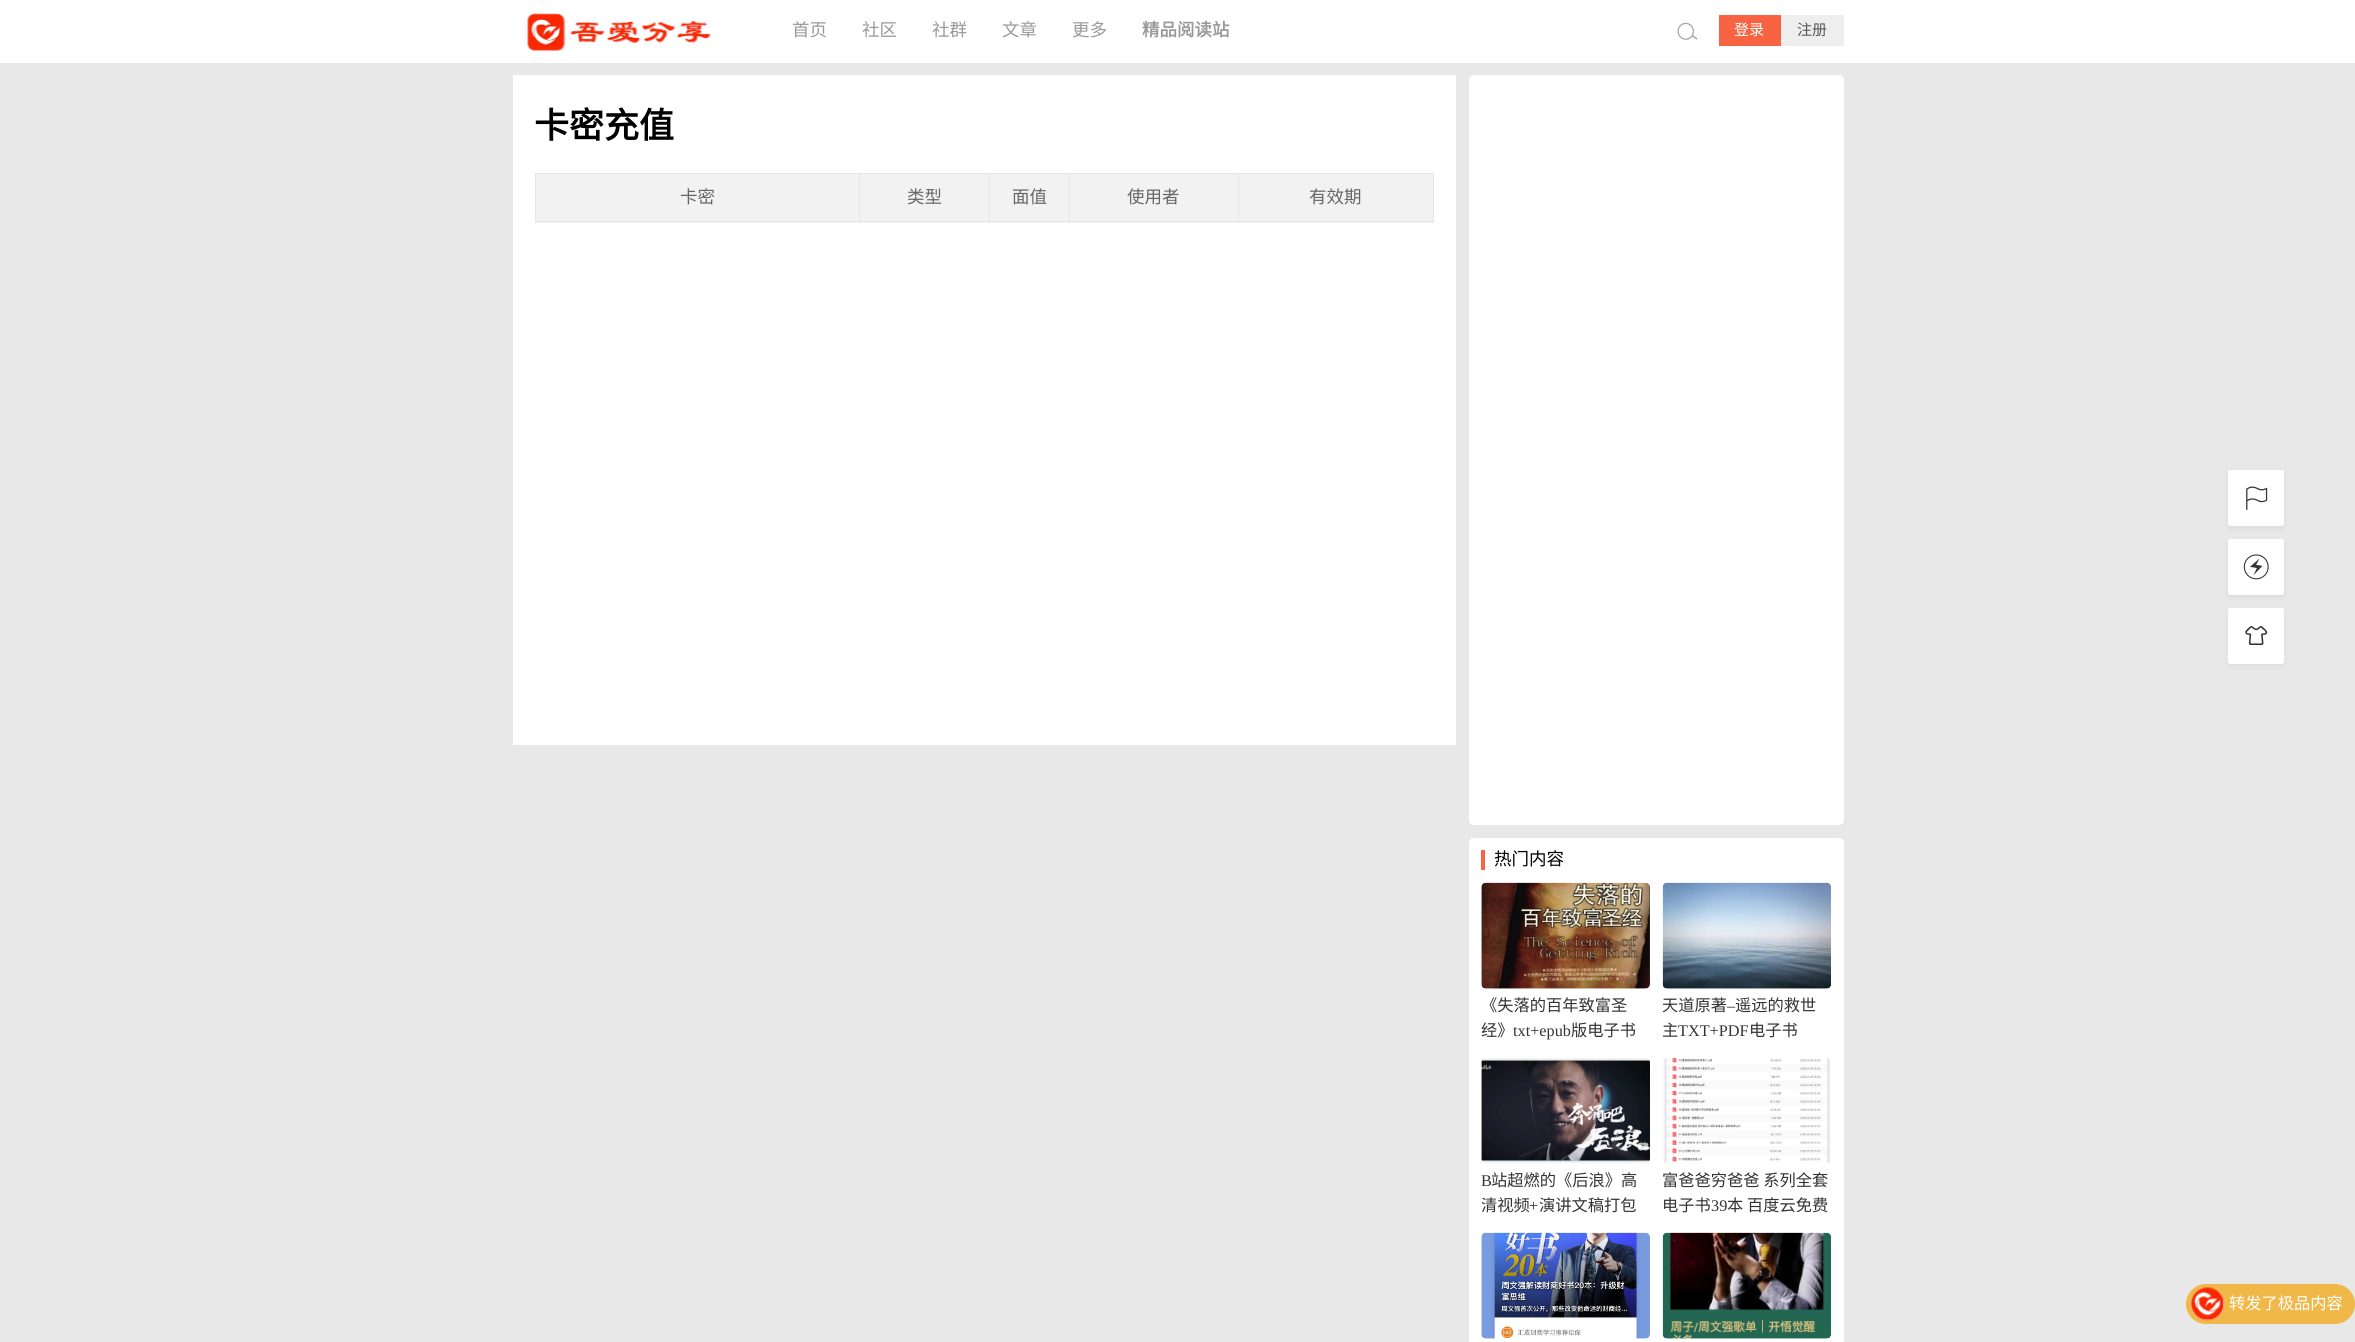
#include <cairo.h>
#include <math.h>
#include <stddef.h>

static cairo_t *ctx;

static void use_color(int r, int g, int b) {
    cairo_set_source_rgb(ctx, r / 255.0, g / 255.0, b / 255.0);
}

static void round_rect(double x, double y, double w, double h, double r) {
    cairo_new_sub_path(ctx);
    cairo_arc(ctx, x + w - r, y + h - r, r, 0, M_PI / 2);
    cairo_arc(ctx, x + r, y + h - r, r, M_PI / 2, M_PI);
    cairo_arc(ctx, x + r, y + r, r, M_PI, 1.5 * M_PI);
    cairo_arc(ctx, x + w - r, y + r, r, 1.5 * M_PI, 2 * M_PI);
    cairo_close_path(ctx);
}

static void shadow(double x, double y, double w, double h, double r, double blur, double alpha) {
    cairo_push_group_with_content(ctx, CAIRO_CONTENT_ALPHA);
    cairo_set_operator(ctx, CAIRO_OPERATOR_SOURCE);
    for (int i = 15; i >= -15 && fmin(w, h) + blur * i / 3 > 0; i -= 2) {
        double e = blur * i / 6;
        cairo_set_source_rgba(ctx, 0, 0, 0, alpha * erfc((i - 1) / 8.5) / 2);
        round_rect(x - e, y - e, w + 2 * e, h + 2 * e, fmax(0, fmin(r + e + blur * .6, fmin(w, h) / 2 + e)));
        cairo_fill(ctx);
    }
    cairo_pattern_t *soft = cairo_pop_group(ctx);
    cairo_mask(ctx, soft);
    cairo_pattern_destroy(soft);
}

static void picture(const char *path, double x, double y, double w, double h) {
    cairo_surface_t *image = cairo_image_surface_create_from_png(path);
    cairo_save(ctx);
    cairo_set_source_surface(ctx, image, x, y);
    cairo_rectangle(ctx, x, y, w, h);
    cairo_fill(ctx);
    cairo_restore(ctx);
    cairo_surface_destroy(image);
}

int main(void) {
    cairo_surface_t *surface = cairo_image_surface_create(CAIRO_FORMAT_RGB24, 2355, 1342);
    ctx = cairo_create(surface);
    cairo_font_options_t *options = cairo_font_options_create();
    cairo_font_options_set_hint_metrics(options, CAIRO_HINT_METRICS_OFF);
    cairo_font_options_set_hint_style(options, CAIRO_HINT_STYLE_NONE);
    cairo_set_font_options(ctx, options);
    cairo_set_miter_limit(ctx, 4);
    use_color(232, 232, 232);
    cairo_paint(ctx);
    use_color(255, 255, 255);
    cairo_rectangle(ctx, 0, 0, 2355, 63);
    cairo_fill(ctx);
    picture("img1.png", 527, 13, 184, 39);
    cairo_select_font_face(ctx, "Noto Sans CJK SC", CAIRO_FONT_SLANT_NORMAL, CAIRO_FONT_WEIGHT_NORMAL);
    cairo_set_font_size(ctx, 17.5);
    use_color(153, 153, 153);
    cairo_move_to(ctx, 792, 36);
    cairo_show_text(ctx, "首页");
    cairo_move_to(ctx, 862, 36);
    cairo_show_text(ctx, "社区");
    cairo_move_to(ctx, 932, 36);
    cairo_show_text(ctx, "社群");
    cairo_move_to(ctx, 1002, 36);
    cairo_show_text(ctx, "文章");
    cairo_move_to(ctx, 1072, 36);
    cairo_show_text(ctx, "更多");
    cairo_select_font_face(ctx, "Noto Sans CJK SC", CAIRO_FONT_SLANT_NORMAL, CAIRO_FONT_WEIGHT_BOLD);
    cairo_move_to(ctx, 1142, 36);
    cairo_show_text(ctx, "精品阅读站");
    picture("img2.png", 1677, 22, 21, 18);
    use_color(248, 100, 66);
    cairo_rectangle(ctx, 1719, 15, 62, 31);
    cairo_fill(ctx);
    cairo_select_font_face(ctx, "Noto Sans CJK SC", CAIRO_FONT_SLANT_NORMAL, CAIRO_FONT_WEIGHT_NORMAL);
    cairo_set_font_size(ctx, 15);
    use_color(255, 255, 255);
    cairo_move_to(ctx, 1734, 35);
    cairo_show_text(ctx, "登录");
    use_color(238, 238, 238);
    cairo_rectangle(ctx, 1781, 15, 63, 31);
    cairo_fill(ctx);
    use_color(85, 85, 85);
    cairo_move_to(ctx, 1797, 35);
    cairo_show_text(ctx, "注册");
    use_color(255, 255, 255);
    cairo_rectangle(ctx, 513, 75, 943, 670);
    cairo_fill(ctx);
    cairo_select_font_face(ctx, "Noto Sans CJK SC", CAIRO_FONT_SLANT_NORMAL, CAIRO_FONT_WEIGHT_BOLD);
    cairo_set_font_size(ctx, 35);
    use_color(0, 0, 0);
    cairo_move_to(ctx, 534, 138);
    cairo_show_text(ctx, "卡密充值");
    use_color(242, 242, 242);
    cairo_rectangle(ctx, 536, 174, 897, 49);
    cairo_fill(ctx);
    use_color(230, 230, 230);
    cairo_rectangle(ctx, 1238, 173, 196, 1);
    cairo_fill(ctx);
    cairo_rectangle(ctx, 1433, 173, 1, 50);
    cairo_fill(ctx);
    cairo_rectangle(ctx, 1238, 221, 196, 1);
    cairo_fill(ctx);
    cairo_rectangle(ctx, 1238, 173, 1, 50);
    cairo_fill(ctx);
    cairo_rectangle(ctx, 1069, 173, 170, 1);
    cairo_fill(ctx);
    cairo_rectangle(ctx, 1069, 221, 170, 1);
    cairo_fill(ctx);
    cairo_rectangle(ctx, 1069, 173, 1, 50);
    cairo_fill(ctx);
    cairo_rectangle(ctx, 989, 173, 81, 1);
    cairo_fill(ctx);
    cairo_rectangle(ctx, 989, 221, 81, 1);
    cairo_fill(ctx);
    cairo_rectangle(ctx, 989, 173, 1, 50);
    cairo_fill(ctx);
    cairo_rectangle(ctx, 859, 173, 131, 1);
    cairo_fill(ctx);
    cairo_rectangle(ctx, 859, 221, 131, 1);
    cairo_fill(ctx);
    cairo_rectangle(ctx, 859, 173, 1, 50);
    cairo_fill(ctx);
    cairo_rectangle(ctx, 535, 173, 325, 1);
    cairo_fill(ctx);
    cairo_rectangle(ctx, 535, 221, 325, 1);
    cairo_fill(ctx);
    cairo_rectangle(ctx, 535, 173, 1, 50);
    cairo_fill(ctx);
    cairo_select_font_face(ctx, "Noto Sans CJK SC", CAIRO_FONT_SLANT_NORMAL, CAIRO_FONT_WEIGHT_NORMAL);
    cairo_set_font_size(ctx, 17.5);
    use_color(102, 102, 102);
    cairo_move_to(ctx, 680, 203);
    cairo_show_text(ctx, "卡密");
    cairo_move_to(ctx, 907, 203);
    cairo_show_text(ctx, "类型");
    cairo_move_to(ctx, 1012, 203);
    cairo_show_text(ctx, "面值");
    cairo_move_to(ctx, 1127, 203);
    cairo_show_text(ctx, "使用者");
    cairo_move_to(ctx, 1309, 203);
    cairo_show_text(ctx, "有效期");
    use_color(255, 255, 255);
    round_rect(1469, 75, 375, 750, 5);
    cairo_fill(ctx);
    round_rect(1469, 838, 375, 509, 5);
    cairo_fill(ctx);
    use_color(248, 100, 66);
    cairo_rectangle(ctx, 1481, 850, 4, 20);
    cairo_fill(ctx);
    use_color(0, 0, 0);
    cairo_move_to(ctx, 1494, 865);
    cairo_show_text(ctx, "热门内容");
    picture("img3.png", 1481, 882, 169, 107);
    cairo_set_font_size(ctx, 16.25);
    use_color(51, 51, 51);
    cairo_move_to(ctx, 1481, 1011);
    cairo_show_text(ctx, "《失落的百年致富圣");
    cairo_move_to(ctx, 1481, 1036);
    cairo_show_text(ctx, "经》");
    cairo_select_font_face(ctx, "Liberation Serif", CAIRO_FONT_SLANT_NORMAL, CAIRO_FONT_WEIGHT_NORMAL);
    cairo_move_to(ctx, 1513, 1036);
    cairo_show_text(ctx, "txt+epub");
    cairo_select_font_face(ctx, "Noto Sans CJK SC", CAIRO_FONT_SLANT_NORMAL, CAIRO_FONT_WEIGHT_NORMAL);
    cairo_move_to(ctx, 1571, 1036);
    cairo_show_text(ctx, "版电子书");
    picture("img4.png", 1662, 882, 169, 107);
    cairo_move_to(ctx, 1662, 1011);
    cairo_show_text(ctx, "天道原著");
    cairo_select_font_face(ctx, "Liberation Serif", CAIRO_FONT_SLANT_NORMAL, CAIRO_FONT_WEIGHT_NORMAL);
    cairo_move_to(ctx, 1727, 1011);
    cairo_show_text(ctx, "–");
    cairo_select_font_face(ctx, "Noto Sans CJK SC", CAIRO_FONT_SLANT_NORMAL, CAIRO_FONT_WEIGHT_NORMAL);
    cairo_move_to(ctx, 1735, 1011);
    cairo_show_text(ctx, "遥远的救世");
    cairo_move_to(ctx, 1662, 1036);
    cairo_show_text(ctx, "主");
    cairo_select_font_face(ctx, "Liberation Serif", CAIRO_FONT_SLANT_NORMAL, CAIRO_FONT_WEIGHT_NORMAL);
    cairo_move_to(ctx, 1678, 1036);
    cairo_show_text(ctx, "TXT+PDF");
    cairo_select_font_face(ctx, "Noto Sans CJK SC", CAIRO_FONT_SLANT_NORMAL, CAIRO_FONT_WEIGHT_NORMAL);
    cairo_move_to(ctx, 1749, 1036);
    cairo_show_text(ctx, "电子书");
    picture("img5.png", 1481, 1058, 169, 105);
    cairo_select_font_face(ctx, "Liberation Serif", CAIRO_FONT_SLANT_NORMAL, CAIRO_FONT_WEIGHT_NORMAL);
    cairo_move_to(ctx, 1481, 1186);
    cairo_show_text(ctx, "B");
    cairo_select_font_face(ctx, "Noto Sans CJK SC", CAIRO_FONT_SLANT_NORMAL, CAIRO_FONT_WEIGHT_NORMAL);
    cairo_move_to(ctx, 1491, 1186);
    cairo_show_text(ctx, "站超燃的《后浪》高");
    cairo_move_to(ctx, 1481, 1211);
    cairo_show_text(ctx, "清视频");
    cairo_select_font_face(ctx, "Liberation Serif", CAIRO_FONT_SLANT_NORMAL, CAIRO_FONT_WEIGHT_NORMAL);
    cairo_move_to(ctx, 1529, 1211);
    cairo_show_text(ctx, "+");
    cairo_select_font_face(ctx, "Noto Sans CJK SC", CAIRO_FONT_SLANT_NORMAL, CAIRO_FONT_WEIGHT_NORMAL);
    cairo_move_to(ctx, 1539, 1211);
    cairo_show_text(ctx, "演讲文稿打包");
    picture("img6.png", 1663, 1057, 168, 107);
    cairo_move_to(ctx, 1662, 1186);
    cairo_show_text(ctx, "富爸爸穷爸爸 系列全套");
    cairo_move_to(ctx, 1662, 1211);
    cairo_show_text(ctx, "电子书");
    cairo_select_font_face(ctx, "Liberation Serif", CAIRO_FONT_SLANT_NORMAL, CAIRO_FONT_WEIGHT_NORMAL);
    cairo_move_to(ctx, 1711, 1211);
    cairo_show_text(ctx, "39");
    cairo_select_font_face(ctx, "Noto Sans CJK SC", CAIRO_FONT_SLANT_NORMAL, CAIRO_FONT_WEIGHT_NORMAL);
    cairo_move_to(ctx, 1727, 1211);
    cairo_show_text(ctx, "本 百度云免费");
    picture("img7.png", 1481, 1232, 169, 107);
    picture("img8.png", 1662, 1232, 169, 107);
    use_color(0, 0, 0);
    shadow(2228, 473, 56, 56, 2.5, 2.5, 0.05);
    use_color(255, 255, 255);
    round_rect(2228, 470, 56, 56, 2.5);
    cairo_fill(ctx);
    picture("img9.png", 2246, 486, 22, 24);
    use_color(0, 0, 0);
    shadow(2228, 541, 56, 57, 2.5, 2.5, 0.05);
    use_color(255, 255, 255);
    round_rect(2228, 539, 56, 56, 2.5);
    cairo_fill(ctx);
    picture("img10.png", 2243, 554, 26, 26);
    use_color(0, 0, 0);
    shadow(2228, 610, 56, 56, 2.5, 2.5, 0.05);
    use_color(255, 255, 255);
    round_rect(2228, 608, 56, 56, 2.5);
    cairo_fill(ctx);
    picture("img11.png", 2245, 626, 23, 19);
    use_color(240, 184, 73);
    round_rect(2186, 1284, 169, 40, 20);
    cairo_fill(ctx);
    use_color(246, 246, 246);
    round_rect(2191, 1288, 33, 32, 16);
    cairo_fill(ctx);
    picture("img12.png", 2191, 1287, 34, 34);
    use_color(255, 255, 255);
    cairo_move_to(ctx, 2229, 1309);
    cairo_show_text(ctx, "转发了极品内容");
    cairo_surface_write_to_png(surface, "result.png");
    cairo_font_options_destroy(options);
    cairo_destroy(ctx);
    cairo_surface_destroy(surface);
    return 0;
}
